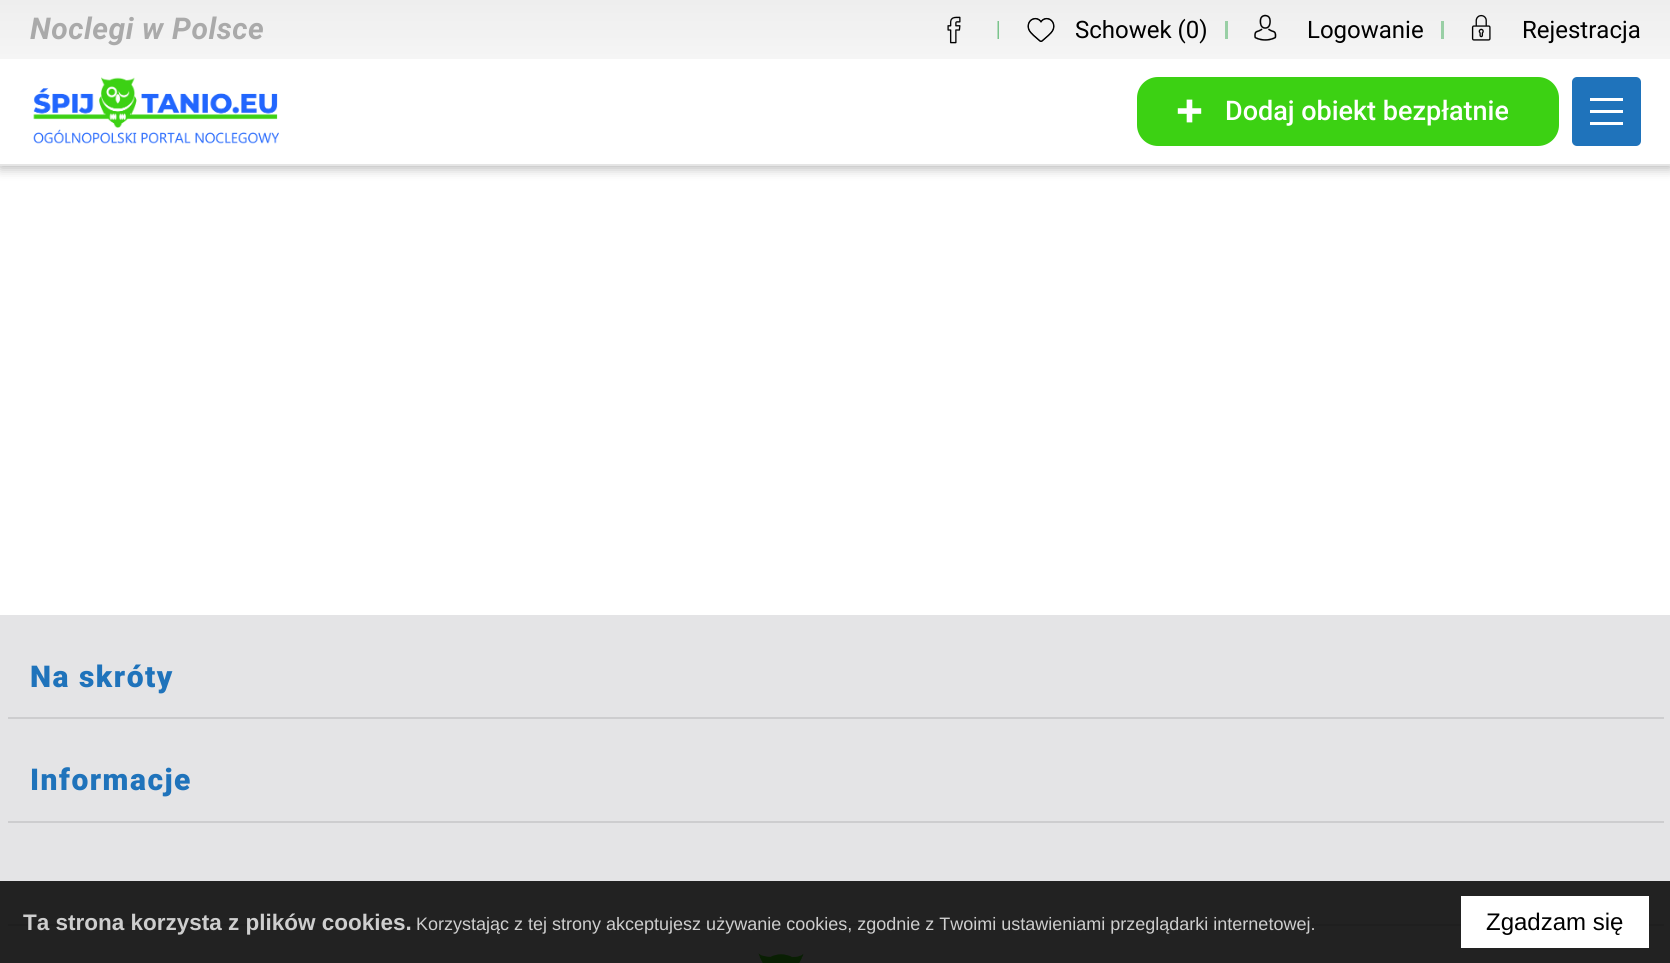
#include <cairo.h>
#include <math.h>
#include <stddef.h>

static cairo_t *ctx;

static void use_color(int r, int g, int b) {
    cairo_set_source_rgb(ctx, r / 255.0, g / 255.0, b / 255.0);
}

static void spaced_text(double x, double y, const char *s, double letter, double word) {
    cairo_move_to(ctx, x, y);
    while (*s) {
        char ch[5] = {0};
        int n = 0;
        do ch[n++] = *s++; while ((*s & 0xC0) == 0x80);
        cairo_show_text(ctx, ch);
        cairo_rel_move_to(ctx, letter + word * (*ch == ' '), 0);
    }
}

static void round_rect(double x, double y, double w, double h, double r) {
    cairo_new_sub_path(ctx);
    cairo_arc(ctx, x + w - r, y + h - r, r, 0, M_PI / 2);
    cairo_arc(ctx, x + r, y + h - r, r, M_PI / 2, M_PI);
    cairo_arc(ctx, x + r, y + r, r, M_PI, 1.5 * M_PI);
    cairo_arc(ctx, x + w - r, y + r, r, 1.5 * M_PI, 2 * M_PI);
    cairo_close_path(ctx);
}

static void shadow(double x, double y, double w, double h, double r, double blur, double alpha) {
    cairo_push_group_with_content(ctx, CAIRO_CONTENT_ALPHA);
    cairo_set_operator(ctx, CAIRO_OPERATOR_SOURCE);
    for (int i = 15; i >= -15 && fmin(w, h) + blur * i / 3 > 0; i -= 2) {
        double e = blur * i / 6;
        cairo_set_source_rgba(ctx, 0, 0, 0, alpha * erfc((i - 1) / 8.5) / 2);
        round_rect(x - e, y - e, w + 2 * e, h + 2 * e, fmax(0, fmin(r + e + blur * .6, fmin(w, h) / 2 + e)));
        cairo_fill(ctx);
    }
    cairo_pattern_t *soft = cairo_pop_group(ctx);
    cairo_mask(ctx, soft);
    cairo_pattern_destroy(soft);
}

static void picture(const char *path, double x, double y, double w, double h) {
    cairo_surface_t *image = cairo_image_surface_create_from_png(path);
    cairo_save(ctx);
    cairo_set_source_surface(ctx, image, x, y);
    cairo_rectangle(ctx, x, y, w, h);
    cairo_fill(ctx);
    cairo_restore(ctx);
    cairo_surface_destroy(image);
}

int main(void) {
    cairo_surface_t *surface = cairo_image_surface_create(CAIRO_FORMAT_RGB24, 1670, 963);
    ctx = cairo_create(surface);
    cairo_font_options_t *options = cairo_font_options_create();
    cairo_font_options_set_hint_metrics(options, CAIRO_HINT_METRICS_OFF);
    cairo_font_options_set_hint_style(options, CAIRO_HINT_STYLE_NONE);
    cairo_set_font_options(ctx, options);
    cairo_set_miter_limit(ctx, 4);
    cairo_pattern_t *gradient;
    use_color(255, 255, 255);
    cairo_paint(ctx);
    use_color(0, 0, 0);
    shadow(0, 3, 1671, 165, 0, 6, 0.3);
    use_color(229, 229, 229);
    cairo_rectangle(ctx, 0, 164, 1670, 2);
    cairo_fill(ctx);
    gradient = cairo_pattern_create_linear(836, 0, 836, 59);
    cairo_pattern_add_color_stop_rgba(gradient, 0, 0.933, 0.933, 0.933, 1);
    cairo_pattern_add_color_stop_rgba(gradient, 1, 0.961, 0.961, 0.961, 1);
    cairo_set_source(ctx, gradient);
    cairo_pattern_destroy(gradient);
    cairo_rectangle(ctx, 0, 0, 1670, 59);
    cairo_fill(ctx);
    cairo_select_font_face(ctx, "Roboto", CAIRO_FONT_SLANT_ITALIC, CAIRO_FONT_WEIGHT_BOLD);
    cairo_set_font_size(ctx, 30);
    use_color(170, 170, 170);
    spaced_text(30, 39, "Noclegi w Polsce", 0.6, 0);
    picture("img1.png", 947, 16, 14, 28);
    picture("img2.png", 997, 21, 2, 18);
    picture("img3.png", 1027, 17, 28, 25);
    cairo_select_font_face(ctx, "Roboto", CAIRO_FONT_SLANT_NORMAL, CAIRO_FONT_WEIGHT_NORMAL);
    cairo_set_font_size(ctx, 24);
    use_color(0, 0, 0);
    cairo_move_to(ctx, 1075, 38);
    cairo_show_text(ctx, "Schowek (0)");
    use_color(153, 207, 165);
    cairo_rectangle(ctx, 1225, 21, 3, 18);
    cairo_fill(ctx);
    picture("img4.png", 1254, 14, 23, 27);
    use_color(0, 0, 0);
    cairo_move_to(ctx, 1307, 38);
    cairo_show_text(ctx, "Logowanie");
    use_color(153, 207, 165);
    cairo_rectangle(ctx, 1441, 21, 3, 18);
    cairo_fill(ctx);
    picture("img5.png", 1471, 14, 20, 27);
    use_color(0, 0, 0);
    cairo_move_to(ctx, 1522, 38);
    cairo_show_text(ctx, "Rejestracja");
    use_color(255, 255, 255);
    cairo_rectangle(ctx, 0, 59, 1670, 105);
    cairo_fill(ctx);
    picture("img6.png", 33, 77, 246, 67);
    use_color(60, 209, 19);
    round_rect(1138, 78, 420, 67, 20);
    cairo_fill_preserve(ctx);
    cairo_stroke(ctx);
    picture("img7.png", 1177, 99, 25, 24);
    cairo_select_font_face(ctx, "Roboto Medium", CAIRO_FONT_SLANT_NORMAL, CAIRO_FONT_WEIGHT_NORMAL);
    cairo_set_font_size(ctx, 27);
    use_color(255, 255, 255);
    cairo_move_to(ctx, 1225, 120);
    cairo_show_text(ctx, "Dodaj obiekt bezpłatnie");
    use_color(31, 115, 187);
    round_rect(1572, 77, 69, 69, 5);
    cairo_fill(ctx);
    use_color(255, 255, 255);
    cairo_rectangle(ctx, 1590, 98, 33, 3);
    cairo_fill(ctx);
    cairo_rectangle(ctx, 1590, 110, 33, 3);
    cairo_fill(ctx);
    cairo_rectangle(ctx, 1590, 122, 33, 3);
    cairo_fill(ctx);
    use_color(228, 228, 230);
    cairo_rectangle(ctx, 0, 615, 1670, 348);
    cairo_fill(ctx);
    use_color(205, 205, 207);
    cairo_rectangle(ctx, 8, 717, 1656, 2);
    cairo_fill(ctx);
    cairo_select_font_face(ctx, "Roboto Black", CAIRO_FONT_SLANT_NORMAL, CAIRO_FONT_WEIGHT_NORMAL);
    cairo_set_font_size(ctx, 30);
    use_color(31, 115, 187);
    spaced_text(30, 687, "Na skróty", 1.5, 0);
    use_color(205, 205, 207);
    cairo_rectangle(ctx, 8, 821, 1656, 2);
    cairo_fill(ctx);
    use_color(31, 115, 187);
    spaced_text(30, 790, "Informacje", 1.5, 0);
    use_color(205, 205, 207);
    cairo_rectangle(ctx, 8, 924, 1656, 2);
    cairo_fill(ctx);
    picture("img8.png", 758, 953, 46, 10);
    cairo_set_source_rgba(ctx, 0, 0, 0, 0.85);
    cairo_rectangle(ctx, 0, 881, 1670, 82);
    cairo_fill(ctx);
    cairo_save(ctx);
    cairo_rectangle(ctx, 23, 906, 1423, 32);
    cairo_clip(ctx);
    cairo_select_font_face(ctx, "Liberation Sans", CAIRO_FONT_SLANT_NORMAL, CAIRO_FONT_WEIGHT_BOLD);
    cairo_set_font_size(ctx, 22.5);
    use_color(206, 206, 206);
    cairo_move_to(ctx, 23, 930);
    cairo_show_text(ctx, "Ta strona korzysta z plików cookies.");
    cairo_restore(ctx);
    cairo_select_font_face(ctx, "Liberation Sans", CAIRO_FONT_SLANT_NORMAL, CAIRO_FONT_WEIGHT_NORMAL);
    cairo_set_font_size(ctx, 18);
    use_color(206, 206, 206);
    cairo_move_to(ctx, 416, 930);
    cairo_show_text(ctx, "Korzystając z tej strony akceptujesz używanie cookies, zgodnie z Twoimi ustawieniami przeglądarki internetowej.");
    use_color(255, 255, 255);
    cairo_rectangle(ctx, 1461, 896, 188, 52);
    cairo_fill(ctx);
    cairo_set_font_size(ctx, 24);
    use_color(0, 0, 0);
    cairo_move_to(ctx, 1486, 930);
    cairo_show_text(ctx, "Zgadzam się");
    cairo_surface_write_to_png(surface, "result.png");
    cairo_font_options_destroy(options);
    cairo_destroy(ctx);
    cairo_surface_destroy(surface);
    return 0;
}
